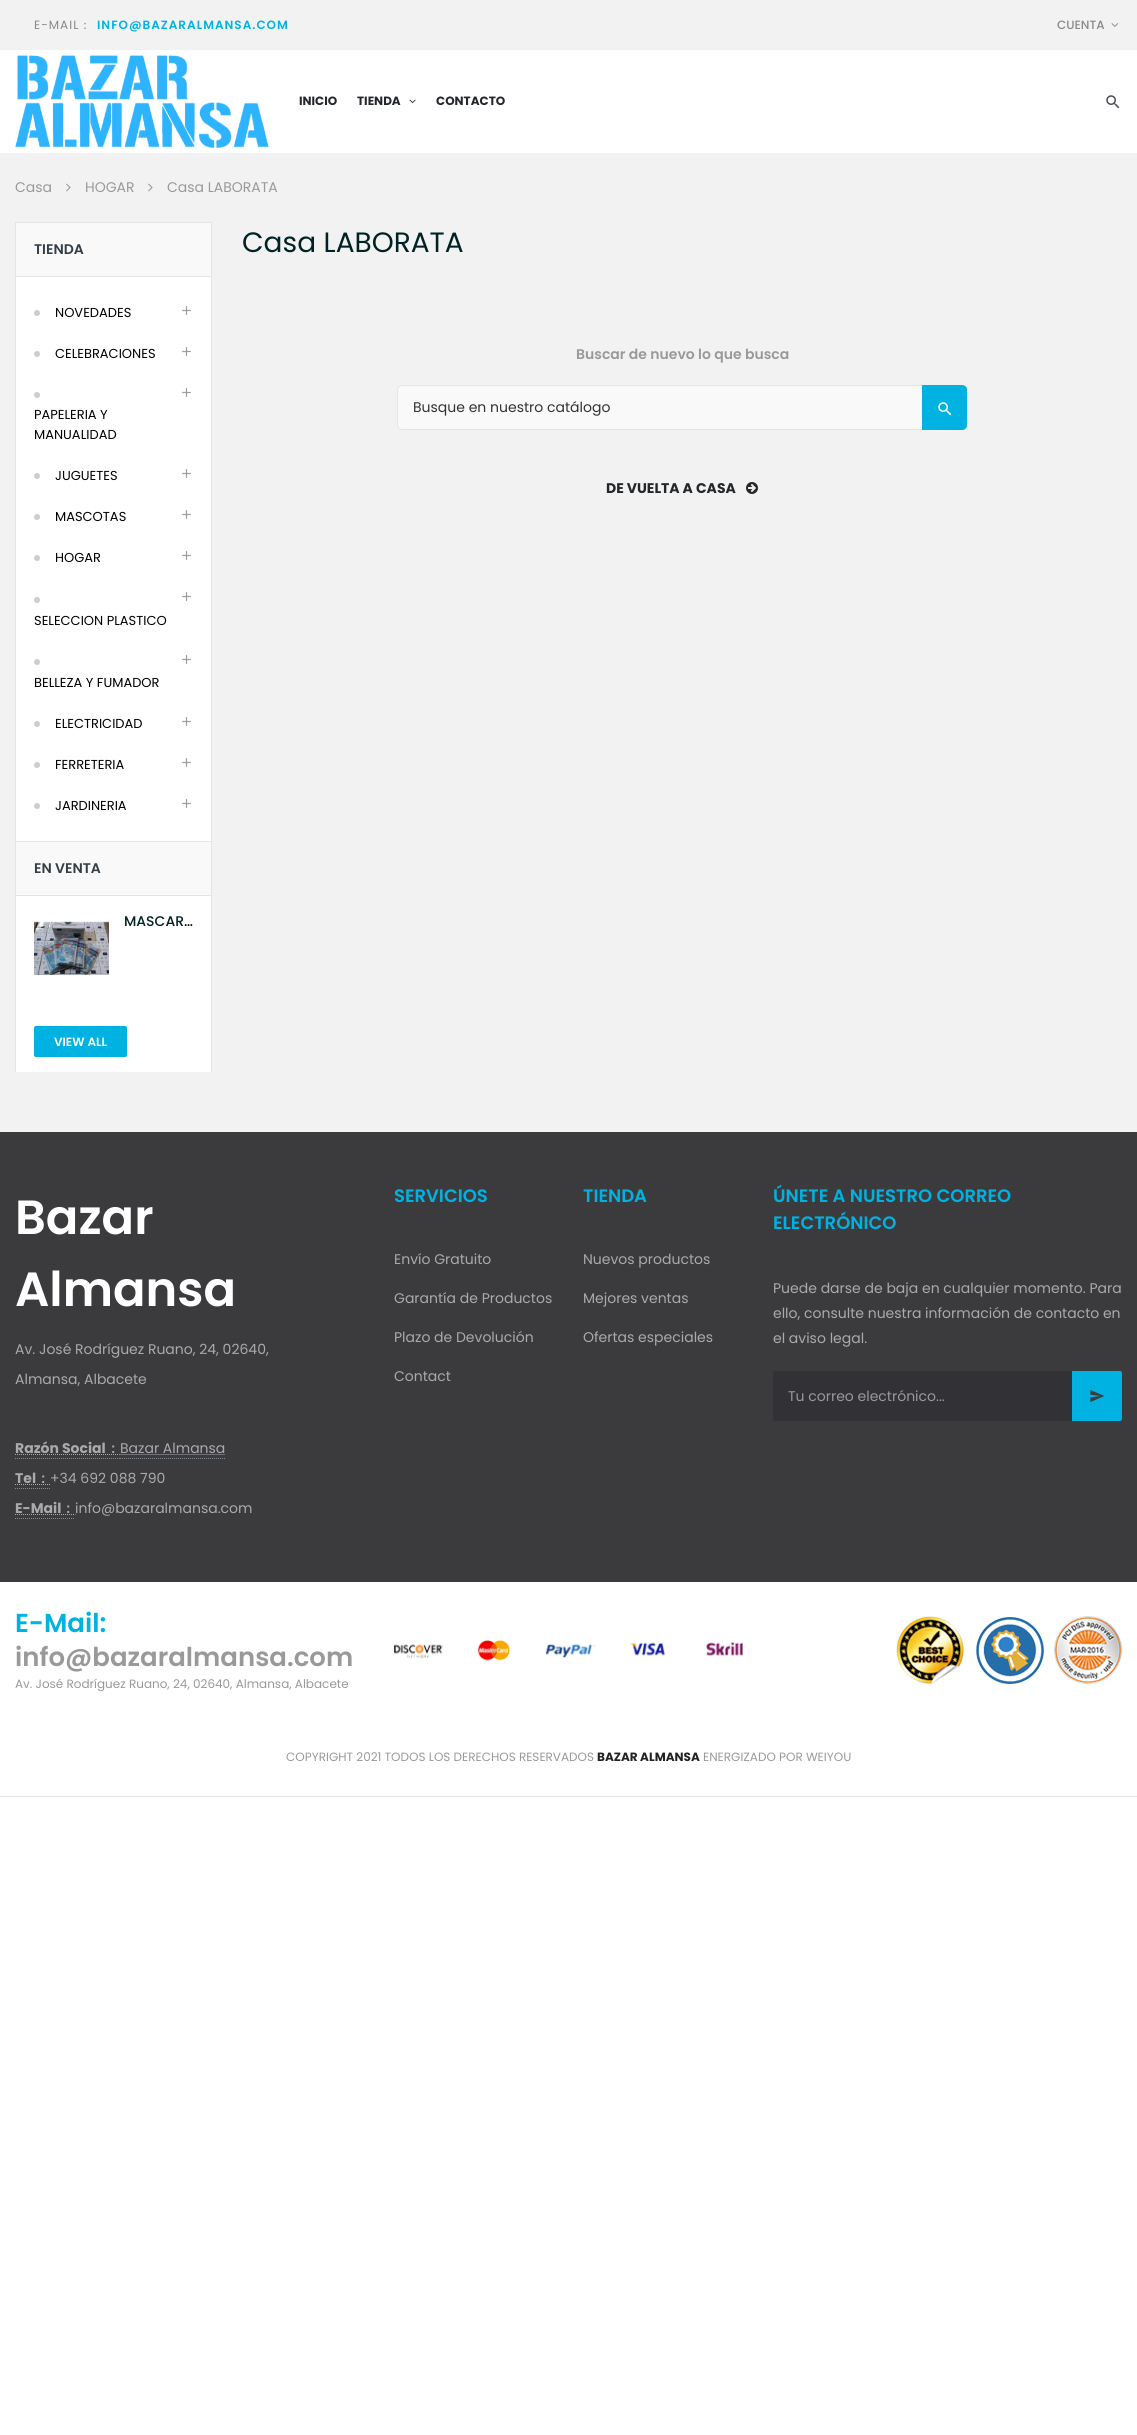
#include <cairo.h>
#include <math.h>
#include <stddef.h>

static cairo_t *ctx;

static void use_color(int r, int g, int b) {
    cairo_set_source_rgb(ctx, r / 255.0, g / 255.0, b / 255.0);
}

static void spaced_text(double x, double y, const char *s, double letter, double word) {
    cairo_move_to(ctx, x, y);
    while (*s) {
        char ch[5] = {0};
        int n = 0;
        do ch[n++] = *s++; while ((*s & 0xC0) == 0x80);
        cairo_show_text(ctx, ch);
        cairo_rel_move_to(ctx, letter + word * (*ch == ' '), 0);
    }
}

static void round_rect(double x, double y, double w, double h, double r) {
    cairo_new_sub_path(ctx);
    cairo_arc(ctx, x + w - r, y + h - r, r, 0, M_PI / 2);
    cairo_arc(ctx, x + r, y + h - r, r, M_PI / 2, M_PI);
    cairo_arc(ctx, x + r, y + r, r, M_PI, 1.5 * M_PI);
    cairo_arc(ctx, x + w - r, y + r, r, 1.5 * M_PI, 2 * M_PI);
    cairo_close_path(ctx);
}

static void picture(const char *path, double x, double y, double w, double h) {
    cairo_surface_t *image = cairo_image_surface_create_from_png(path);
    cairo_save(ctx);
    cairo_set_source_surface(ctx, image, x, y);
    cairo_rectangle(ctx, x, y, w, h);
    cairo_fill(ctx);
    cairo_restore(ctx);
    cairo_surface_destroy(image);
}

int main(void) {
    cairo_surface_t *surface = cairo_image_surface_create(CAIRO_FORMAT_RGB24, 1137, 2435);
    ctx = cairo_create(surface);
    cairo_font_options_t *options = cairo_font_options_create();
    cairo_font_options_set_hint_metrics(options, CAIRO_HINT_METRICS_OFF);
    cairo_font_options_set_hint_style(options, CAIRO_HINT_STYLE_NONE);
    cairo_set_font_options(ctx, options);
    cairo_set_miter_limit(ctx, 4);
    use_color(255, 255, 255);
    cairo_paint(ctx);
    use_color(242, 242, 242);
    cairo_rectangle(ctx, 0, 0, 1137, 50);
    cairo_fill(ctx);
    cairo_select_font_face(ctx, "Poppins", CAIRO_FONT_SLANT_NORMAL, CAIRO_FONT_WEIGHT_NORMAL);
    cairo_set_font_size(ctx, 12);
    use_color(136, 136, 136);
    spaced_text(34, 29, "E-MAIL", 1, 0);
    cairo_select_font_face(ctx, "WenQuanYi Zen Hei Medium", CAIRO_FONT_SLANT_NORMAL, CAIRO_FONT_WEIGHT_NORMAL);
    spaced_text(79, 29, "：", 1, 0);
    cairo_select_font_face(ctx, "Poppins SemiBold", CAIRO_FONT_SLANT_NORMAL, CAIRO_FONT_WEIGHT_NORMAL);
    use_color(0, 178, 226);
    spaced_text(97, 29, "INFO@BAZARALMANSA.COM", 1, 0);
    cairo_select_font_face(ctx, "Poppins Medium", CAIRO_FONT_SLANT_NORMAL, CAIRO_FONT_WEIGHT_NORMAL);
    use_color(136, 136, 136);
    cairo_move_to(ctx, 1057, 29);
    cairo_show_text(ctx, "CUENTA");
    picture("img1.png", 1111, 23, 8, 4);
    picture("img2.png", 15, 55, 254, 93);
    cairo_select_font_face(ctx, "Poppins", CAIRO_FONT_SLANT_NORMAL, CAIRO_FONT_WEIGHT_BOLD);
    use_color(35, 38, 43);
    cairo_move_to(ctx, 299, 105);
    cairo_show_text(ctx, "INICIO");
    cairo_move_to(ctx, 357, 105);
    cairo_show_text(ctx, "TIENDA");
    picture("img3.png", 409, 99, 7, 5);
    cairo_move_to(ctx, 436, 105);
    cairo_show_text(ctx, "CONTACTO");
    picture("img4.png", 1106, 95, 14, 14);
    use_color(242, 242, 242);
    cairo_rectangle(ctx, 0, 153, 1137, 979);
    cairo_fill(ctx);
    cairo_select_font_face(ctx, "Poppins", CAIRO_FONT_SLANT_NORMAL, CAIRO_FONT_WEIGHT_NORMAL);
    cairo_set_font_size(ctx, 14);
    use_color(153, 153, 153);
    cairo_move_to(ctx, 15, 192);
    cairo_show_text(ctx, "Casa");
    picture("img5.png", 66, 183, 5, 9);
    cairo_move_to(ctx, 85, 192);
    cairo_show_text(ctx, "HOGAR");
    picture("img5.png", 148, 183, 5, 9);
    cairo_move_to(ctx, 167, 192);
    cairo_show_text(ctx, "Casa LABORATA");
    use_color(255, 255, 255);
    cairo_rectangle(ctx, 16, 277, 195, 564);
    cairo_fill(ctx);
    use_color(229, 229, 229);
    cairo_rectangle(ctx, 211, 222, 1, 850);
    cairo_fill(ctx);
    cairo_rectangle(ctx, 15, 222, 1, 850);
    cairo_fill(ctx);
    use_color(249, 249, 249);
    cairo_rectangle(ctx, 16, 223, 195, 53);
    cairo_fill(ctx);
    use_color(229, 229, 229);
    cairo_rectangle(ctx, 16, 222, 195, 1);
    cairo_fill(ctx);
    cairo_rectangle(ctx, 16, 276, 195, 1);
    cairo_fill(ctx);
    cairo_select_font_face(ctx, "Poppins SemiBold", CAIRO_FONT_SLANT_NORMAL, CAIRO_FONT_WEIGHT_NORMAL);
    use_color(51, 62, 72);
    cairo_move_to(ctx, 34, 254);
    cairo_show_text(ctx, "TIENDA");
    use_color(205, 205, 205);
    cairo_new_path(ctx);
    cairo_arc(ctx, 37, 313, 3, 0, 2 * M_PI);
    cairo_fill(ctx);
    cairo_select_font_face(ctx, "Poppins", CAIRO_FONT_SLANT_NORMAL, CAIRO_FONT_WEIGHT_NORMAL);
    cairo_set_font_size(ctx, 13);
    use_color(0, 0, 0);
    cairo_move_to(ctx, 55, 317);
    cairo_show_text(ctx, "NOVEDADES");
    picture("img6.png", 182, 306, 9, 9);
    use_color(205, 205, 205);
    cairo_arc(ctx, 37, 354, 3, 0, 2 * M_PI);
    cairo_fill(ctx);
    use_color(0, 0, 0);
    cairo_move_to(ctx, 55, 358);
    cairo_show_text(ctx, "CELEBRACIONES");
    picture("img6.png", 182, 347, 9, 9);
    use_color(205, 205, 205);
    cairo_arc(ctx, 37, 395, 3, 0, 2 * M_PI);
    cairo_fill(ctx);
    picture("img6.png", 182, 388, 9, 9);
    use_color(0, 0, 0);
    cairo_move_to(ctx, 34, 419);
    cairo_show_text(ctx, "PAPELERIA Y");
    cairo_move_to(ctx, 34, 439);
    cairo_show_text(ctx, "MANUALIDAD");
    use_color(205, 205, 205);
    cairo_new_path(ctx);
    cairo_arc(ctx, 37, 476, 3, 0, 2 * M_PI);
    cairo_fill(ctx);
    use_color(0, 0, 0);
    cairo_move_to(ctx, 55, 480);
    cairo_show_text(ctx, "JUGUETES");
    picture("img6.png", 182, 469, 9, 9);
    use_color(205, 205, 205);
    cairo_arc(ctx, 37, 517, 3, 0, 2 * M_PI);
    cairo_fill(ctx);
    use_color(0, 0, 0);
    cairo_move_to(ctx, 55, 521);
    cairo_show_text(ctx, "MASCOTAS");
    picture("img6.png", 182, 510, 9, 9);
    use_color(205, 205, 205);
    cairo_arc(ctx, 37, 558, 3, 0, 2 * M_PI);
    cairo_fill(ctx);
    use_color(0, 0, 0);
    cairo_move_to(ctx, 55, 562);
    cairo_show_text(ctx, "HOGAR");
    picture("img6.png", 182, 551, 9, 9);
    use_color(205, 205, 205);
    cairo_arc(ctx, 37, 600, 3, 0, 2 * M_PI);
    cairo_fill(ctx);
    picture("img6.png", 182, 592, 9, 9);
    use_color(0, 0, 0);
    cairo_move_to(ctx, 34, 625);
    cairo_show_text(ctx, "SELECCION PLASTICO");
    use_color(205, 205, 205);
    cairo_new_path(ctx);
    cairo_arc(ctx, 37, 662, 3, 0, 2 * M_PI);
    cairo_fill(ctx);
    picture("img6.png", 182, 655, 9, 9);
    use_color(0, 0, 0);
    cairo_move_to(ctx, 34, 687);
    cairo_show_text(ctx, "BELLEZA Y FUMADOR");
    use_color(205, 205, 205);
    cairo_new_path(ctx);
    cairo_arc(ctx, 37, 724, 3, 0, 2 * M_PI);
    cairo_fill(ctx);
    use_color(0, 0, 0);
    cairo_move_to(ctx, 55, 728);
    cairo_show_text(ctx, "ELECTRICIDAD");
    picture("img6.png", 182, 717, 9, 9);
    use_color(205, 205, 205);
    cairo_arc(ctx, 37, 765, 3, 0, 2 * M_PI);
    cairo_fill(ctx);
    use_color(0, 0, 0);
    cairo_move_to(ctx, 55, 769);
    cairo_show_text(ctx, "FERRETERIA");
    picture("img6.png", 182, 758, 9, 9);
    use_color(205, 205, 205);
    cairo_arc(ctx, 37, 806, 3, 0, 2 * M_PI);
    cairo_fill(ctx);
    use_color(0, 0, 0);
    cairo_move_to(ctx, 55, 810);
    cairo_show_text(ctx, "JARDINERIA");
    picture("img6.png", 182, 799, 9, 9);
    use_color(255, 255, 255);
    cairo_rectangle(ctx, 16, 896, 195, 176);
    cairo_fill(ctx);
    use_color(249, 249, 249);
    cairo_rectangle(ctx, 16, 842, 195, 53);
    cairo_fill(ctx);
    use_color(229, 229, 229);
    cairo_rectangle(ctx, 16, 841, 195, 1);
    cairo_fill(ctx);
    cairo_rectangle(ctx, 16, 895, 195, 1);
    cairo_fill(ctx);
    cairo_select_font_face(ctx, "Poppins SemiBold", CAIRO_FONT_SLANT_NORMAL, CAIRO_FONT_WEIGHT_NORMAL);
    cairo_set_font_size(ctx, 14);
    use_color(51, 62, 72);
    cairo_move_to(ctx, 34, 873);
    cairo_show_text(ctx, "EN VENTA");
    picture("img7.png", 34, 921, 75, 54);
    cairo_select_font_face(ctx, "Poppins Medium", CAIRO_FONT_SLANT_NORMAL, CAIRO_FONT_WEIGHT_NORMAL);
    use_color(0, 34, 34);
    cairo_move_to(ctx, 124, 926);
    cairo_show_text(ctx, "MASCAR…");
    use_color(0, 178, 226);
    round_rect(34, 1026, 93, 31, 2);
    cairo_fill(ctx);
    cairo_select_font_face(ctx, "Poppins SemiBold", CAIRO_FONT_SLANT_NORMAL, CAIRO_FONT_WEIGHT_NORMAL);
    cairo_set_font_size(ctx, 12);
    use_color(255, 255, 255);
    cairo_move_to(ctx, 54, 1046);
    cairo_show_text(ctx, "VIEW ALL");
    cairo_select_font_face(ctx, "Poppins", CAIRO_FONT_SLANT_NORMAL, CAIRO_FONT_WEIGHT_NORMAL);
    cairo_set_font_size(ctx, 28);
    use_color(0, 34, 34);
    cairo_move_to(ctx, 242, 252);
    cairo_show_text(ctx, "Casa LABORATA");
    cairo_select_font_face(ctx, "Poppins SemiBold", CAIRO_FONT_SLANT_NORMAL, CAIRO_FONT_WEIGHT_NORMAL);
    cairo_set_font_size(ctx, 14);
    use_color(153, 153, 153);
    cairo_move_to(ctx, 576, 359);
    cairo_show_text(ctx, "Buscar de nuevo lo que busca");
    use_color(249, 249, 249);
    round_rect(397.5, 385.5, 569, 44, 4.5);
    cairo_fill_preserve(ctx);
    use_color(229, 229, 229);
    cairo_set_line_width(ctx, 1);
    cairo_stroke(ctx);
    cairo_select_font_face(ctx, "Poppins", CAIRO_FONT_SLANT_NORMAL, CAIRO_FONT_WEIGHT_NORMAL);
    use_color(50, 50, 50);
    cairo_move_to(ctx, 413, 412);
    cairo_show_text(ctx, "Busque en nuestro catálogo");
    use_color(0, 178, 226);
    cairo_new_path(ctx);
    cairo_move_to(ctx, 922, 385);
    cairo_line_to(ctx, 962, 385);
    cairo_curve_to(ctx, 965, 385, 967, 387, 967, 390);
    cairo_line_to(ctx, 967, 425);
    cairo_curve_to(ctx, 967, 428, 965, 430, 962, 430);
    cairo_line_to(ctx, 922, 430);
    cairo_close_path(ctx);
    cairo_fill(ctx);
    picture("img8.png", 938, 402, 14, 14);
    cairo_select_font_face(ctx, "Poppins", CAIRO_FONT_SLANT_NORMAL, CAIRO_FONT_WEIGHT_BOLD);
    use_color(35, 38, 43);
    cairo_move_to(ctx, 606, 493);
    cairo_show_text(ctx, "DE VUELTA A CASA");
    picture("img9.png", 746, 482, 12, 12);
    use_color(59, 59, 62);
    cairo_rectangle(ctx, 0, 1132, 1137, 450);
    cairo_fill(ctx);
    cairo_select_font_face(ctx, "Poppins SemiBold", CAIRO_FONT_SLANT_NORMAL, CAIRO_FONT_WEIGHT_NORMAL);
    cairo_set_font_size(ctx, 48);
    use_color(255, 255, 255);
    cairo_move_to(ctx, 15, 1234);
    cairo_show_text(ctx, "Bazar");
    cairo_move_to(ctx, 15, 1306);
    cairo_show_text(ctx, "Almansa");
    cairo_select_font_face(ctx, "Poppins", CAIRO_FONT_SLANT_NORMAL, CAIRO_FONT_WEIGHT_NORMAL);
    cairo_set_font_size(ctx, 14);
    use_color(170, 170, 170);
    cairo_move_to(ctx, 15, 1354);
    cairo_show_text(ctx, "Av. José Rodríguez Ruano, 24, 02640,");
    cairo_move_to(ctx, 15, 1384);
    cairo_show_text(ctx, "Almansa, Albacete");
    cairo_select_font_face(ctx, "Poppins", CAIRO_FONT_SLANT_NORMAL, CAIRO_FONT_WEIGHT_BOLD);
    cairo_move_to(ctx, 15, 1453);
    cairo_show_text(ctx, "Razón Social");
    cairo_select_font_face(ctx, "WenQuanYi Zen Hei", CAIRO_FONT_SLANT_NORMAL, CAIRO_FONT_WEIGHT_BOLD);
    cairo_move_to(ctx, 106, 1453);
    cairo_show_text(ctx, "：");
    cairo_new_path(ctx);
    cairo_move_to(ctx, 15, 1458.5);
    cairo_line_to(ctx, 120, 1458.5);
    use_color(129, 138, 145);
    cairo_set_dash(ctx, (double[]){1, 1}, 2, 0);
    cairo_stroke(ctx);
    cairo_new_path(ctx);
    cairo_move_to(ctx, 15, 1454.5);
    cairo_line_to(ctx, 119.5, 1454.5);
    use_color(170, 170, 170);
    cairo_stroke(ctx);
    cairo_select_font_face(ctx, "Poppins", CAIRO_FONT_SLANT_NORMAL, CAIRO_FONT_WEIGHT_NORMAL);
    cairo_move_to(ctx, 120, 1453);
    cairo_show_text(ctx, "Bazar Almansa");
    cairo_new_path(ctx);
    cairo_move_to(ctx, 120, 1458.5);
    cairo_line_to(ctx, 225, 1458.5);
    use_color(129, 138, 145);
    cairo_stroke(ctx);
    cairo_new_path(ctx);
    cairo_move_to(ctx, 119.5, 1454.5);
    cairo_line_to(ctx, 225, 1454.5);
    use_color(170, 170, 170);
    cairo_stroke(ctx);
    cairo_select_font_face(ctx, "Poppins", CAIRO_FONT_SLANT_NORMAL, CAIRO_FONT_WEIGHT_BOLD);
    cairo_move_to(ctx, 15, 1483);
    cairo_show_text(ctx, "Tel");
    cairo_select_font_face(ctx, "WenQuanYi Zen Hei", CAIRO_FONT_SLANT_NORMAL, CAIRO_FONT_WEIGHT_BOLD);
    cairo_move_to(ctx, 36, 1483);
    cairo_show_text(ctx, "：");
    cairo_new_path(ctx);
    cairo_move_to(ctx, 15, 1488.5);
    cairo_line_to(ctx, 50, 1488.5);
    use_color(129, 138, 145);
    cairo_stroke(ctx);
    cairo_new_path(ctx);
    cairo_move_to(ctx, 15, 1484.5);
    cairo_line_to(ctx, 50, 1484.5);
    use_color(170, 170, 170);
    cairo_stroke(ctx);
    cairo_select_font_face(ctx, "Poppins", CAIRO_FONT_SLANT_NORMAL, CAIRO_FONT_WEIGHT_NORMAL);
    cairo_move_to(ctx, 50, 1483);
    cairo_show_text(ctx, "+34 692 088 790");
    cairo_select_font_face(ctx, "Poppins", CAIRO_FONT_SLANT_NORMAL, CAIRO_FONT_WEIGHT_BOLD);
    cairo_move_to(ctx, 15, 1513);
    cairo_show_text(ctx, "E-Mail");
    cairo_select_font_face(ctx, "WenQuanYi Zen Hei", CAIRO_FONT_SLANT_NORMAL, CAIRO_FONT_WEIGHT_BOLD);
    cairo_move_to(ctx, 61, 1513);
    cairo_show_text(ctx, "：");
    cairo_new_path(ctx);
    cairo_move_to(ctx, 15, 1518.5);
    cairo_line_to(ctx, 75, 1518.5);
    use_color(129, 138, 145);
    cairo_stroke(ctx);
    cairo_new_path(ctx);
    cairo_move_to(ctx, 15, 1514.5);
    cairo_line_to(ctx, 75.5, 1514.5);
    use_color(170, 170, 170);
    cairo_stroke(ctx);
    cairo_select_font_face(ctx, "Poppins", CAIRO_FONT_SLANT_NORMAL, CAIRO_FONT_WEIGHT_NORMAL);
    cairo_move_to(ctx, 75, 1513);
    cairo_show_text(ctx, "info@bazaralmansa.com");
    cairo_select_font_face(ctx, "Poppins SemiBold", CAIRO_FONT_SLANT_NORMAL, CAIRO_FONT_WEIGHT_NORMAL);
    cairo_set_font_size(ctx, 18);
    use_color(0, 178, 226);
    cairo_move_to(ctx, 394, 1202);
    cairo_show_text(ctx, "SERVICIOS");
    cairo_select_font_face(ctx, "Poppins", CAIRO_FONT_SLANT_NORMAL, CAIRO_FONT_WEIGHT_NORMAL);
    cairo_set_font_size(ctx, 14);
    use_color(170, 170, 170);
    cairo_move_to(ctx, 394, 1264);
    cairo_show_text(ctx, "Envío Gratuito");
    cairo_move_to(ctx, 394, 1303);
    cairo_show_text(ctx, "Garantía de Productos");
    cairo_move_to(ctx, 394, 1342);
    cairo_show_text(ctx, "Plazo de Devolución");
    cairo_move_to(ctx, 394, 1381);
    cairo_show_text(ctx, "Contact");
    cairo_select_font_face(ctx, "Poppins SemiBold", CAIRO_FONT_SLANT_NORMAL, CAIRO_FONT_WEIGHT_NORMAL);
    cairo_set_font_size(ctx, 18);
    use_color(0, 178, 226);
    cairo_move_to(ctx, 583, 1202);
    cairo_show_text(ctx, "TIENDA");
    cairo_select_font_face(ctx, "Poppins", CAIRO_FONT_SLANT_NORMAL, CAIRO_FONT_WEIGHT_NORMAL);
    cairo_set_font_size(ctx, 14);
    use_color(170, 170, 170);
    cairo_move_to(ctx, 583, 1264);
    cairo_show_text(ctx, "Nuevos productos");
    cairo_move_to(ctx, 583, 1303);
    cairo_show_text(ctx, "Mejores ventas");
    cairo_move_to(ctx, 583, 1342);
    cairo_show_text(ctx, "Ofertas especiales");
    cairo_select_font_face(ctx, "Poppins SemiBold", CAIRO_FONT_SLANT_NORMAL, CAIRO_FONT_WEIGHT_NORMAL);
    cairo_set_font_size(ctx, 18);
    use_color(0, 178, 226);
    cairo_move_to(ctx, 773, 1202);
    cairo_show_text(ctx, "ÚNETE A NUESTRO CORREO");
    cairo_move_to(ctx, 773, 1229);
    cairo_show_text(ctx, "ELECTRÓNICO");
    cairo_select_font_face(ctx, "Poppins", CAIRO_FONT_SLANT_NORMAL, CAIRO_FONT_WEIGHT_NORMAL);
    cairo_set_font_size(ctx, 14);
    use_color(170, 170, 170);
    cairo_move_to(ctx, 773, 1293);
    cairo_show_text(ctx, "Puede darse de baja en cualquier momento. Para");
    cairo_move_to(ctx, 773, 1318);
    cairo_show_text(ctx, "ello, consulte nuestra información de contacto en");
    cairo_move_to(ctx, 773, 1343);
    cairo_show_text(ctx, "el aviso legal.");
    use_color(50, 50, 54);
    cairo_new_path(ctx);
    cairo_move_to(ctx, 775, 1371);
    cairo_line_to(ctx, 1072, 1371);
    cairo_line_to(ctx, 1072, 1421);
    cairo_line_to(ctx, 775, 1421);
    cairo_curve_to(ctx, 774, 1421, 773, 1420, 773, 1419);
    cairo_line_to(ctx, 773, 1373);
    cairo_curve_to(ctx, 773, 1372, 774, 1371, 775, 1371);
    cairo_close_path(ctx);
    cairo_fill(ctx);
    use_color(153, 153, 153);
    cairo_move_to(ctx, 788, 1401);
    cairo_show_text(ctx, "Tu correo electrónico...");
    use_color(0, 178, 226);
    cairo_new_path(ctx);
    cairo_move_to(ctx, 1072, 1371);
    cairo_line_to(ctx, 1120, 1371);
    cairo_curve_to(ctx, 1121, 1371, 1122, 1372, 1122, 1373);
    cairo_line_to(ctx, 1122, 1419);
    cairo_curve_to(ctx, 1122, 1420, 1121, 1421, 1120, 1421);
    cairo_line_to(ctx, 1072, 1421);
    cairo_close_path(ctx);
    cairo_fill(ctx);
    picture("img10.png", 1090, 1390, 15, 12);
    cairo_select_font_face(ctx, "Poppins SemiBold", CAIRO_FONT_SLANT_NORMAL, CAIRO_FONT_WEIGHT_NORMAL);
    cairo_set_font_size(ctx, 26);
    cairo_move_to(ctx, 15, 1632);
    cairo_show_text(ctx, "E-Mail:");
    use_color(153, 153, 153);
    cairo_move_to(ctx, 15, 1666);
    cairo_show_text(ctx, "info@bazaralmansa.com");
    cairo_select_font_face(ctx, "Poppins", CAIRO_FONT_SLANT_NORMAL, CAIRO_FONT_WEIGHT_NORMAL);
    cairo_set_font_size(ctx, 12);
    cairo_move_to(ctx, 15, 1688);
    cairo_show_text(ctx, "Av. José Rodríguez Ruano, 24, 02640, Almansa, Albacete");
    picture("img11.png", 394, 1640, 349, 21);
    picture("img12.png", 896, 1616, 226, 68);
    cairo_move_to(ctx, 286, 1761);
    cairo_show_text(ctx, "COPYRIGHT 2021 TODOS LOS DERECHOS RESERVADOS");
    cairo_select_font_face(ctx, "Poppins", CAIRO_FONT_SLANT_NORMAL, CAIRO_FONT_WEIGHT_BOLD);
    use_color(34, 34, 34);
    cairo_move_to(ctx, 597, 1761);
    cairo_show_text(ctx, "BAZAR ALMANSA");
    cairo_select_font_face(ctx, "Poppins", CAIRO_FONT_SLANT_NORMAL, CAIRO_FONT_WEIGHT_NORMAL);
    use_color(153, 153, 153);
    cairo_move_to(ctx, 703, 1761);
    cairo_show_text(ctx, "ENERGIZADO POR WEIYOU");
    use_color(228, 228, 228);
    cairo_rectangle(ctx, 0, 1796, 1137, 1);
    cairo_fill(ctx);
    cairo_surface_write_to_png(surface, "result.png");
    cairo_font_options_destroy(options);
    cairo_destroy(ctx);
    cairo_surface_destroy(surface);
    return 0;
}
